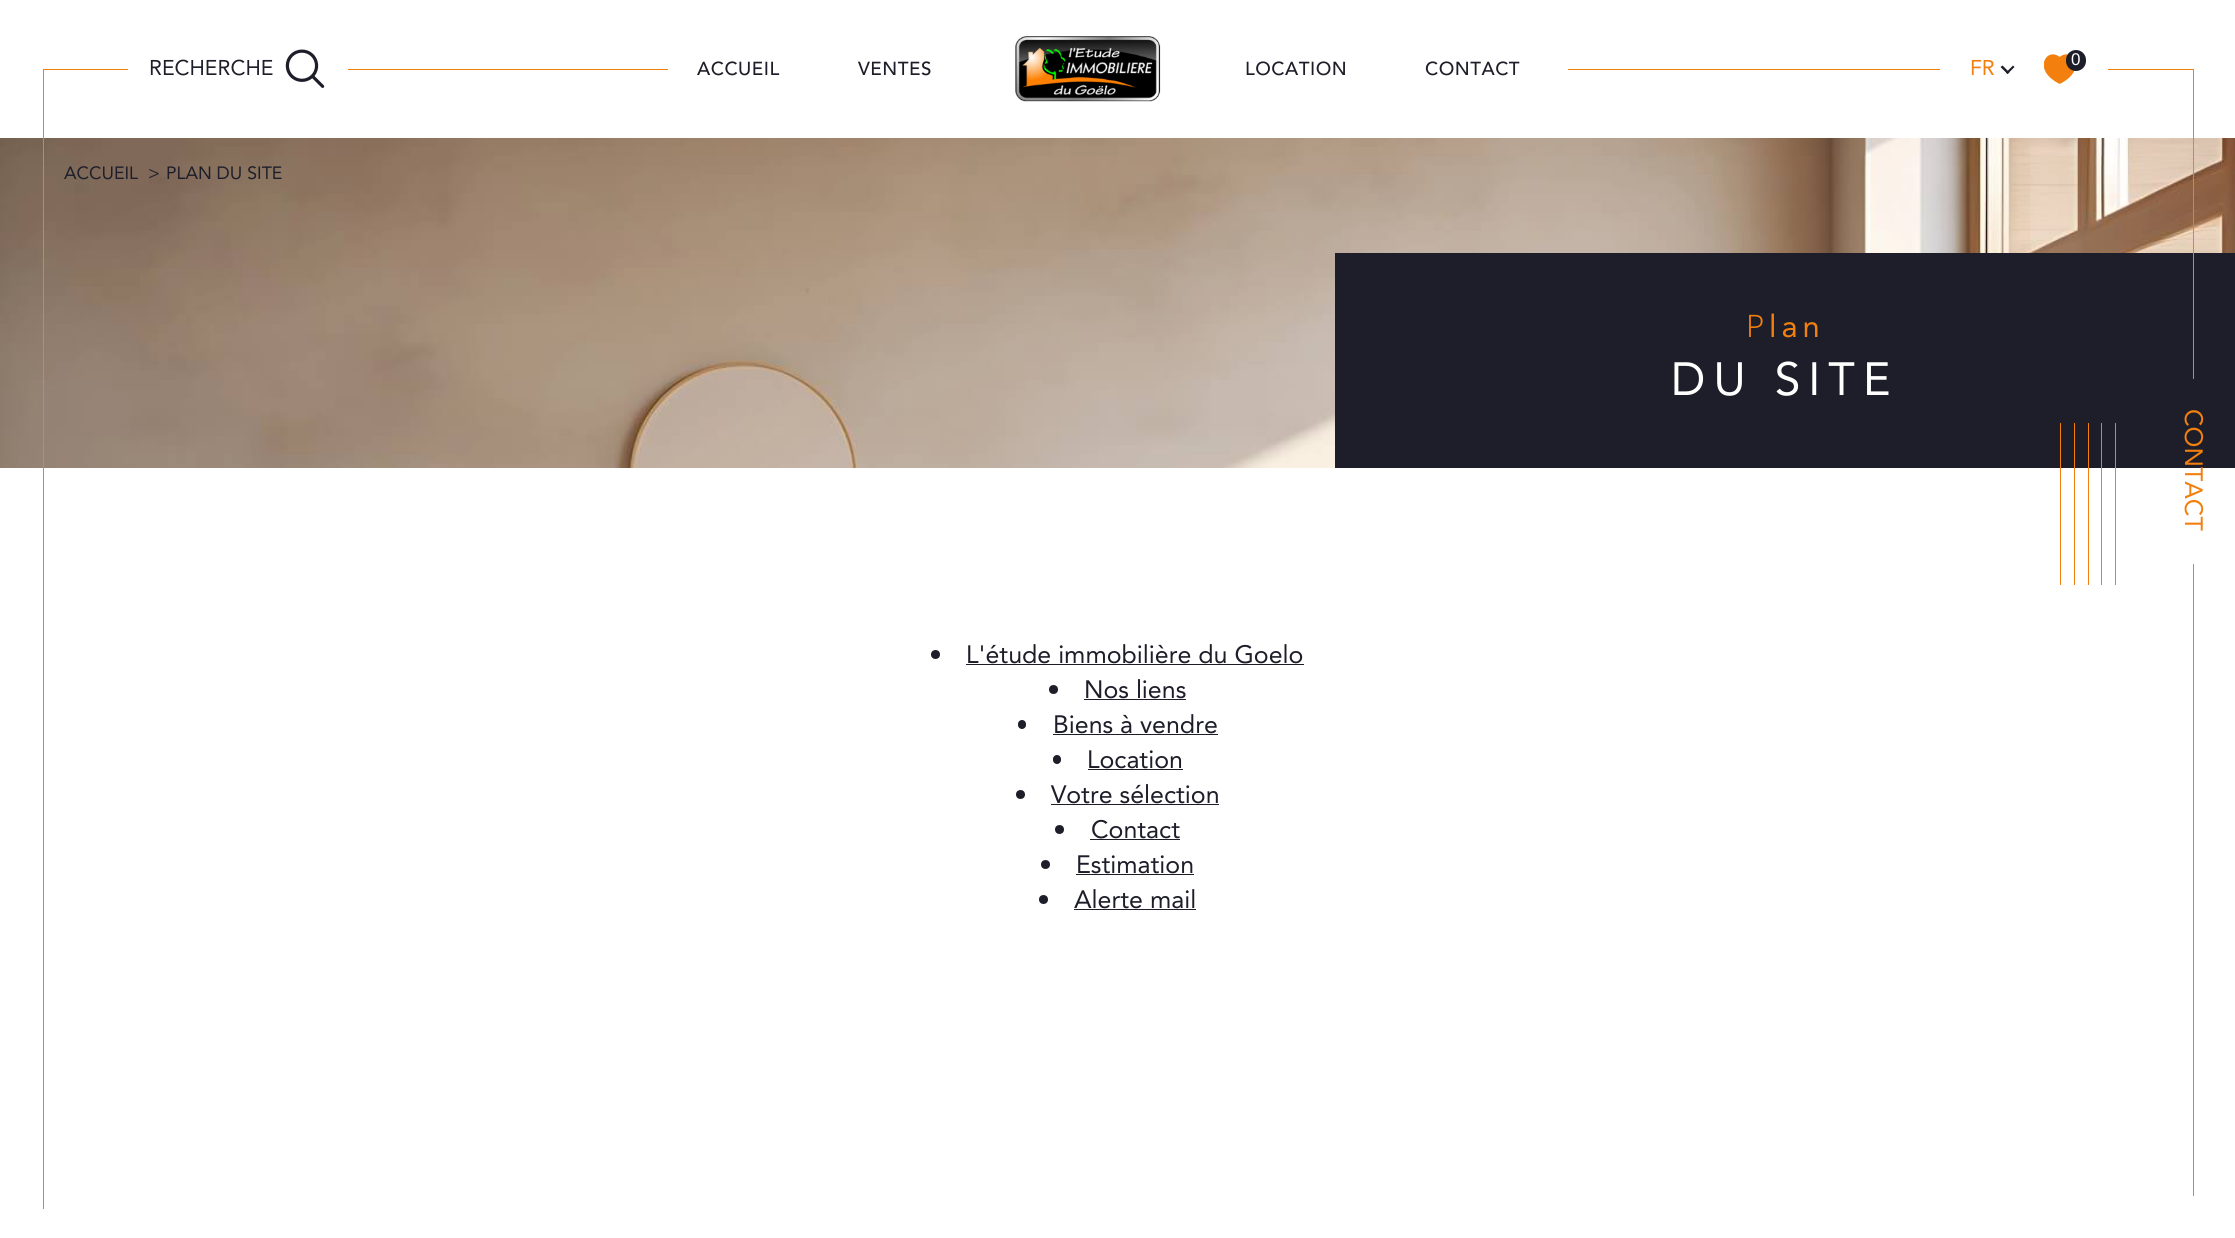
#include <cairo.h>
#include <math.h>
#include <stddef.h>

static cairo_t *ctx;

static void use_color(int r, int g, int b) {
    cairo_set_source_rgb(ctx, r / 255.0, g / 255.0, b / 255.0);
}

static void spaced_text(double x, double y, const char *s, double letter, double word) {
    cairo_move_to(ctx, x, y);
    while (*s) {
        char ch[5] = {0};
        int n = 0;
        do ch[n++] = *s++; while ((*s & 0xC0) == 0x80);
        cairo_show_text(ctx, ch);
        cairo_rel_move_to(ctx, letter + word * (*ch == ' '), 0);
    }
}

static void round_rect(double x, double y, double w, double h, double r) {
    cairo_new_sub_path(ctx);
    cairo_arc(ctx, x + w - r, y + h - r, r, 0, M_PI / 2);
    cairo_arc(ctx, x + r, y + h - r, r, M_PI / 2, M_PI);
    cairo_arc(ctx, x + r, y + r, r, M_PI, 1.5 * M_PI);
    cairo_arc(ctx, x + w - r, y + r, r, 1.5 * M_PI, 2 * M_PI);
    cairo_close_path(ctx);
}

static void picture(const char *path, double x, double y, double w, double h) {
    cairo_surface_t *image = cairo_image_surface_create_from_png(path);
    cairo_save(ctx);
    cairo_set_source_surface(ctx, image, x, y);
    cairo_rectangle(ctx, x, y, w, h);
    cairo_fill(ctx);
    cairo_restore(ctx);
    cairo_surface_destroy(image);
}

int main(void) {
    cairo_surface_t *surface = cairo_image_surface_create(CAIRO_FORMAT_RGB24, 2235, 1238);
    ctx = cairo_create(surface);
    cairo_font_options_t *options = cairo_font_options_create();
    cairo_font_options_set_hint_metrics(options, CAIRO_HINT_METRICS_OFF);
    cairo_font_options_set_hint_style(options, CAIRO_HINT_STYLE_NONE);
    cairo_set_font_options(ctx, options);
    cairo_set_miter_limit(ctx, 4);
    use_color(255, 255, 255);
    cairo_paint(ctx);
    use_color(242, 127, 14);
    cairo_rectangle(ctx, 43, 69, 2150, 1);
    cairo_fill(ctx);
    use_color(255, 255, 255);
    cairo_rectangle(ctx, 128, 69, 220, 1);
    cairo_fill(ctx);
    cairo_select_font_face(ctx, "Avenir", CAIRO_FONT_SLANT_NORMAL, CAIRO_FONT_WEIGHT_NORMAL);
    cairo_set_font_size(ctx, 21.25);
    use_color(30, 30, 42);
    cairo_move_to(ctx, 149, 75);
    cairo_show_text(ctx, "RECHERCHE");
    picture("img1.png", 285, 49, 40, 39);
    use_color(255, 255, 255);
    cairo_rectangle(ctx, 1940, 69, 168, 1);
    cairo_fill(ctx);
    use_color(242, 127, 14);
    cairo_move_to(ctx, 1970, 75);
    cairo_show_text(ctx, "FR");
    use_color(30, 30, 42);
    cairo_new_path(ctx);
    cairo_move_to(ctx, 2013, 65.5);
    cairo_line_to(ctx, 2014.5, 67);
    cairo_line_to(ctx, 2007.5, 74);
    cairo_line_to(ctx, 2006, 72.5);
    cairo_close_path(ctx);
    cairo_fill(ctx);
    cairo_new_path(ctx);
    cairo_move_to(ctx, 2002.5, 65.5);
    cairo_line_to(ctx, 2009.5, 72.5);
    cairo_line_to(ctx, 2007.5, 74);
    cairo_line_to(ctx, 2000.5, 67);
    cairo_close_path(ctx);
    cairo_fill(ctx);
    picture("img2.png", 2044, 54, 31, 30);
    round_rect(2066, 50, 20, 21, 10);
    cairo_fill(ctx);
    cairo_select_font_face(ctx, "Liberation Sans", CAIRO_FONT_SLANT_NORMAL, CAIRO_FONT_WEIGHT_NORMAL);
    cairo_set_font_size(ctx, 17);
    use_color(255, 255, 255);
    cairo_move_to(ctx, 2071, 65);
    cairo_show_text(ctx, "0");
    cairo_rectangle(ctx, 668, 69, 900, 1);
    cairo_fill(ctx);
    cairo_select_font_face(ctx, "Avenir Medium", CAIRO_FONT_SLANT_NORMAL, CAIRO_FONT_WEIGHT_NORMAL);
    cairo_set_font_size(ctx, 18.75);
    use_color(30, 30, 42);
    spaced_text(697, 75, "ACCUEIL", 0.5, 0);
    spaced_text(858, 75, "VENTES", 0.5, 0);
    picture("img3.png", 1015, 36, 146, 66);
    spaced_text(1245, 75, "LOCATION", 0.5, 0);
    spaced_text(1425, 75, "CONTACT", 0.5, 0);
    picture("img4.png", 0, 138, 2235, 330);
    use_color(242, 127, 14);
    cairo_rectangle(ctx, 43, 69, 1, 1140);
    cairo_fill(ctx);
    use_color(30, 30, 42);
    cairo_rectangle(ctx, 1335, 253, 900, 215);
    cairo_fill(ctx);
    use_color(242, 127, 14);
    cairo_rectangle(ctx, 2193, 69, 1, 310);
    cairo_fill(ctx);
    cairo_select_font_face(ctx, "Avenir", CAIRO_FONT_SLANT_NORMAL, CAIRO_FONT_WEIGHT_NORMAL);
    cairo_set_font_size(ctx, 25);
    cairo_save(ctx);
    cairo_translate(ctx, 2185, 409);
    cairo_rotate(ctx, 90 * M_PI / 180);
    cairo_move_to(ctx, 0, 0);
    cairo_show_text(ctx, "CONTACT");
    cairo_restore(ctx);
    cairo_rectangle(ctx, 2193, 564, 1, 632);
    cairo_fill(ctx);
    cairo_set_font_size(ctx, 17.75);
    use_color(30, 30, 42);
    cairo_move_to(ctx, 64, 179);
    cairo_show_text(ctx, "ACCUEIL");
    cairo_move_to(ctx, 148, 179);
    cairo_show_text(ctx, ">");
    cairo_move_to(ctx, 166, 179);
    cairo_show_text(ctx, "PLAN DU SITE");
    cairo_select_font_face(ctx, "Noto Sans Light", CAIRO_FONT_SLANT_NORMAL, CAIRO_FONT_WEIGHT_NORMAL);
    cairo_set_font_size(ctx, 31);
    use_color(242, 127, 14);
    spaced_text(1746, 337, "P", 5, 0);
    cairo_select_font_face(ctx, "Avenir", CAIRO_FONT_SLANT_NORMAL, CAIRO_FONT_WEIGHT_NORMAL);
    spaced_text(1769, 337, "lan", 5, 0);
    cairo_set_font_size(ctx, 46.25);
    use_color(255, 255, 255);
    spaced_text(1671, 395, "DU SITE", 8, 0);
    use_color(242, 127, 14);
    cairo_rectangle(ctx, 2060, 423, 1, 162);
    cairo_fill(ctx);
    cairo_rectangle(ctx, 2074, 423, 1, 162);
    cairo_fill(ctx);
    cairo_rectangle(ctx, 2088, 423, 1, 162);
    cairo_fill(ctx);
    cairo_rectangle(ctx, 2101, 423, 1, 162);
    cairo_fill(ctx);
    cairo_rectangle(ctx, 2115, 423, 1, 162);
    cairo_fill(ctx);
    use_color(30, 30, 42);
    cairo_arc(ctx, 935.5, 654.5, 4.5, 0, 2 * M_PI);
    cairo_fill(ctx);
    cairo_set_font_size(ctx, 25);
    cairo_move_to(ctx, 966, 663);
    cairo_show_text(ctx, "L'étude immobilière du Goelo");
    cairo_rectangle(ctx, 966, 664, 338, 1);
    cairo_fill(ctx);
    cairo_arc(ctx, 1053.5, 689.5, 4.5, 0, 2 * M_PI);
    cairo_fill(ctx);
    cairo_move_to(ctx, 1084, 698);
    cairo_show_text(ctx, "Nos liens");
    cairo_rectangle(ctx, 1084, 699, 102, 1);
    cairo_fill(ctx);
    round_rect(1018, 720, 8, 9, 4);
    cairo_fill(ctx);
    cairo_move_to(ctx, 1053, 733);
    cairo_show_text(ctx, "Biens à vendre");
    cairo_rectangle(ctx, 1053, 734, 165, 1);
    cairo_fill(ctx);
    round_rect(1053, 755, 8, 9, 4);
    cairo_fill(ctx);
    cairo_move_to(ctx, 1087, 768);
    cairo_show_text(ctx, "Location");
    cairo_rectangle(ctx, 1088, 769, 95, 1);
    cairo_fill(ctx);
    cairo_arc(ctx, 1020.5, 794.5, 4.5, 0, 2 * M_PI);
    cairo_fill(ctx);
    cairo_move_to(ctx, 1051, 803);
    cairo_show_text(ctx, "Votre sélection");
    cairo_rectangle(ctx, 1051, 804, 168, 1);
    cairo_fill(ctx);
    cairo_arc(ctx, 1059.5, 829.5, 4.5, 0, 2 * M_PI);
    cairo_fill(ctx);
    cairo_move_to(ctx, 1091, 838);
    cairo_show_text(ctx, "Contact");
    cairo_rectangle(ctx, 1090, 839, 90, 1);
    cairo_fill(ctx);
    cairo_arc(ctx, 1045.5, 864.5, 4.5, 0, 2 * M_PI);
    cairo_fill(ctx);
    cairo_move_to(ctx, 1076, 873);
    cairo_show_text(ctx, "Estimation");
    cairo_rectangle(ctx, 1076, 874, 118, 1);
    cairo_fill(ctx);
    cairo_arc(ctx, 1043.5, 899.5, 4.5, 0, 2 * M_PI);
    cairo_fill(ctx);
    cairo_move_to(ctx, 1074, 908);
    cairo_show_text(ctx, "Alerte mail");
    cairo_rectangle(ctx, 1074, 909, 122, 1);
    cairo_fill(ctx);
    cairo_surface_write_to_png(surface, "result.png");
    cairo_font_options_destroy(options);
    cairo_destroy(ctx);
    cairo_surface_destroy(surface);
    return 0;
}
